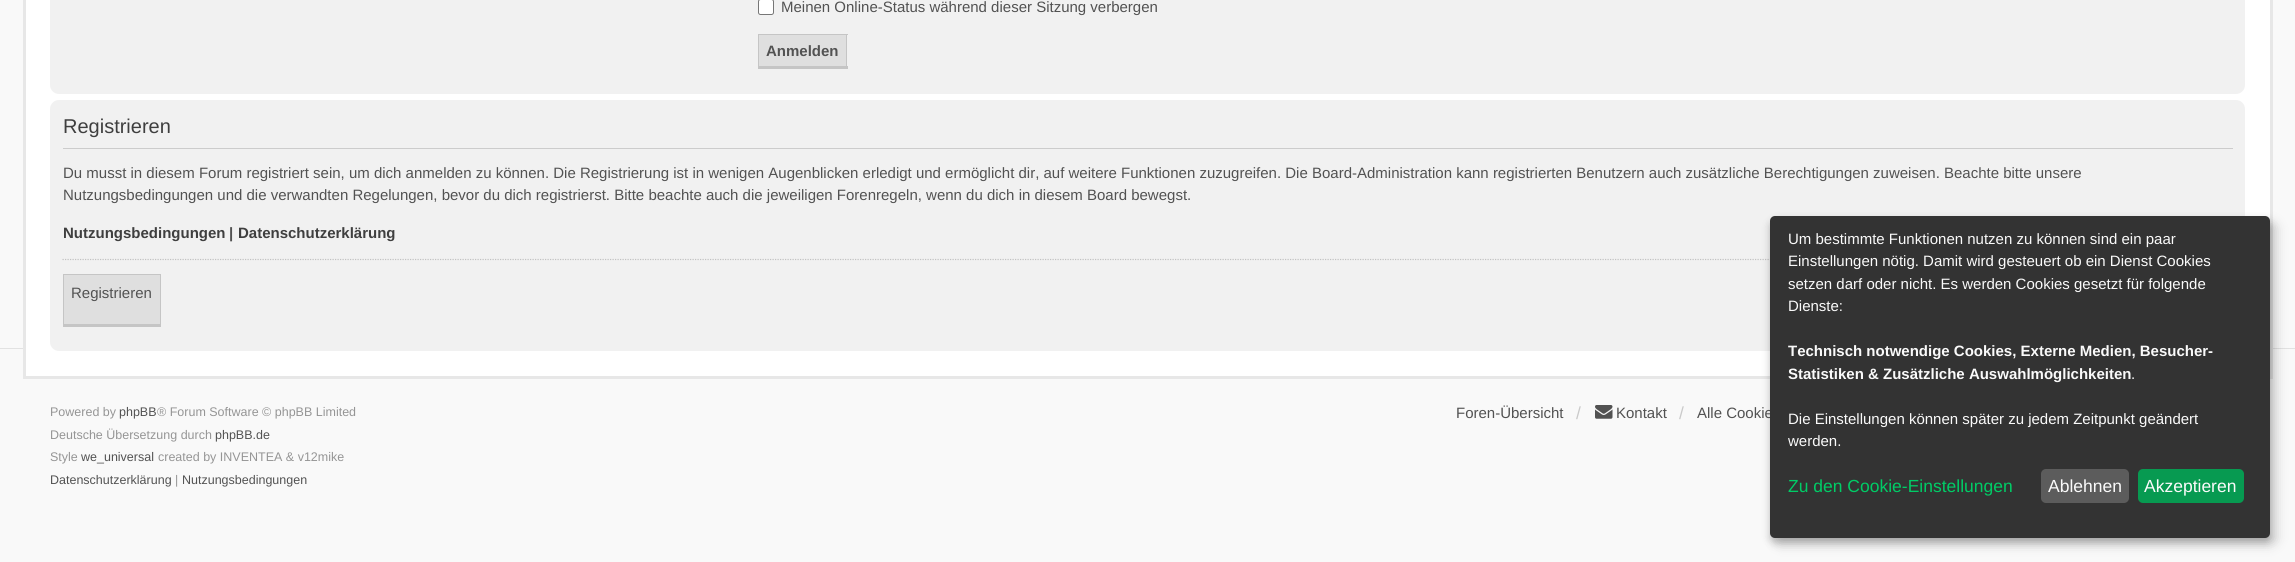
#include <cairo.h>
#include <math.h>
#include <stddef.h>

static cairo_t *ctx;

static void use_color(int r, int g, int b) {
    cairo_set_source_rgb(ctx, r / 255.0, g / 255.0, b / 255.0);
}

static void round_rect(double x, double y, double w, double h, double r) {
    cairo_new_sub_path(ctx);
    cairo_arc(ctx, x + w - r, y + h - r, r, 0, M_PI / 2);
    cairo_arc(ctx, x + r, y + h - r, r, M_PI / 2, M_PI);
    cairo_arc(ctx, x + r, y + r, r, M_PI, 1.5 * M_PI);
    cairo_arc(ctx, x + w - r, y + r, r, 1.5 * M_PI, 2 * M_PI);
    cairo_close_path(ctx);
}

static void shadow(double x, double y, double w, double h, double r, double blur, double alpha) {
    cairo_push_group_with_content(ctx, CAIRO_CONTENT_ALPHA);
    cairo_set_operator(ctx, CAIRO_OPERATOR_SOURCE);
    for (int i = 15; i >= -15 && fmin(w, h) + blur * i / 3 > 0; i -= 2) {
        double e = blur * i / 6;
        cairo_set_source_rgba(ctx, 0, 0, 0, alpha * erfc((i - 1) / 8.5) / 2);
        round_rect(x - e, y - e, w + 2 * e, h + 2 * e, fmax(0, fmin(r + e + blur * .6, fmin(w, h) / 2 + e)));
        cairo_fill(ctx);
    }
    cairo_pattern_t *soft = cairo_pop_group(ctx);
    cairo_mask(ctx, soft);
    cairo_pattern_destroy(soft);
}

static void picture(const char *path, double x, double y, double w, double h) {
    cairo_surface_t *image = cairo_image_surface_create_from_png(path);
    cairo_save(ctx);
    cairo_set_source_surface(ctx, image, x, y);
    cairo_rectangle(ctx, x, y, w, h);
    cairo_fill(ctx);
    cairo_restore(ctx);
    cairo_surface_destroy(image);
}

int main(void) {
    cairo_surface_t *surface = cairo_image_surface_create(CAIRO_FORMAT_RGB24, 2295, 562);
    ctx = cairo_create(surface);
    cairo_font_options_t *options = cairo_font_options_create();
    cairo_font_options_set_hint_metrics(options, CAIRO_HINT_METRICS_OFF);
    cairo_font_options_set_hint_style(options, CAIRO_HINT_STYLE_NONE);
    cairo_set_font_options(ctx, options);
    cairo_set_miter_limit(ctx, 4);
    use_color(249, 249, 249);
    cairo_paint(ctx);
    use_color(226, 226, 226);
    cairo_rectangle(ctx, 0, 348, 2295, 1);
    cairo_fill(ctx);
    use_color(255, 255, 255);
    cairo_rectangle(ctx, 26, 0, 2244, 376);
    cairo_fill(ctx);
    use_color(231, 231, 231);
    cairo_rectangle(ctx, 2270, 0, 3, 379);
    cairo_fill(ctx);
    cairo_rectangle(ctx, 23, 376, 2250, 3);
    cairo_fill(ctx);
    cairo_rectangle(ctx, 23, 0, 3, 379);
    cairo_fill(ctx);
    use_color(241, 241, 241);
    round_rect(50, -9, 2195, 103, 9);
    cairo_fill(ctx);
    use_color(255, 255, 255);
    round_rect(758.5, -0.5, 15, 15, 2);
    cairo_fill_preserve(ctx);
    use_color(118, 118, 118);
    cairo_set_line_width(ctx, 1);
    cairo_stroke(ctx);
    cairo_select_font_face(ctx, "Liberation Sans", CAIRO_FONT_SLANT_NORMAL, CAIRO_FONT_WEIGHT_NORMAL);
    cairo_set_font_size(ctx, 15);
    use_color(82, 82, 82);
    cairo_move_to(ctx, 781, 12);
    cairo_show_text(ctx, "Meinen Online-Status während dieser Sitzung verbergen");
    use_color(223, 223, 223);
    cairo_rectangle(ctx, 759, 35, 87, 31);
    cairo_fill(ctx);
    use_color(197, 197, 197);
    cairo_rectangle(ctx, 758, 34, 90, 1);
    cairo_fill(ctx);
    cairo_rectangle(ctx, 846, 34, 1, 35);
    cairo_fill(ctx);
    cairo_rectangle(ctx, 758, 66, 90, 3);
    cairo_fill(ctx);
    cairo_rectangle(ctx, 758, 34, 1, 35);
    cairo_fill(ctx);
    cairo_select_font_face(ctx, "Liberation Sans", CAIRO_FONT_SLANT_NORMAL, CAIRO_FONT_WEIGHT_BOLD);
    use_color(82, 82, 82);
    cairo_move_to(ctx, 766, 56);
    cairo_show_text(ctx, "Anmelden");
    use_color(241, 241, 241);
    round_rect(50, 100, 2195, 251, 9);
    cairo_fill(ctx);
    use_color(204, 204, 204);
    cairo_rectangle(ctx, 63, 148, 2170, 1);
    cairo_fill(ctx);
    cairo_select_font_face(ctx, "Liberation Sans", CAIRO_FONT_SLANT_NORMAL, CAIRO_FONT_WEIGHT_NORMAL);
    cairo_set_font_size(ctx, 20);
    use_color(63, 63, 63);
    cairo_move_to(ctx, 63, 133);
    cairo_show_text(ctx, "Registrieren");
    cairo_set_font_size(ctx, 15);
    use_color(82, 82, 82);
    cairo_move_to(ctx, 63, 178);
    cairo_show_text(ctx, "Du musst in diesem Forum registriert sein, um dich anmelden zu können. Die Registrierung ist in wenigen Augenblicken erledigt und ermöglicht dir, auf weitere Funktionen zuzugreifen. Die Board-Administration kann registrierten Benutzern auch zusätzliche Berechtigungen zuweisen. Beachte bitte unsere");
    cairo_move_to(ctx, 63, 200);
    cairo_show_text(ctx, "Nutzungsbedingungen und die verwandten Regelungen, bevor du dich registrierst. Bitte beachte auch die jeweiligen Forenregeln, wenn du dich in diesem Board bewegst.");
    cairo_select_font_face(ctx, "Liberation Sans", CAIRO_FONT_SLANT_NORMAL, CAIRO_FONT_WEIGHT_BOLD);
    use_color(63, 63, 63);
    cairo_move_to(ctx, 63, 238);
    cairo_show_text(ctx, "Nutzungsbedingungen");
    use_color(82, 82, 82);
    cairo_move_to(ctx, 229, 238);
    cairo_show_text(ctx, "|");
    use_color(63, 63, 63);
    cairo_move_to(ctx, 238, 238);
    cairo_show_text(ctx, "Datenschutzerklärung");
    cairo_new_path(ctx);
    cairo_move_to(ctx, 62.5, 259.5);
    cairo_line_to(ctx, 2232.5, 259.5);
    use_color(194, 194, 194);
    cairo_set_line_width(ctx, 1.2);
    cairo_set_dash(ctx, (double[]){1.25, 1.25}, 2, 0);
    cairo_stroke(ctx);
    use_color(223, 223, 223);
    cairo_rectangle(ctx, 64, 275, 96, 49);
    cairo_fill(ctx);
    use_color(197, 197, 197);
    cairo_rectangle(ctx, 63, 274, 98, 1);
    cairo_fill(ctx);
    cairo_rectangle(ctx, 160, 274, 1, 52);
    cairo_fill(ctx);
    cairo_rectangle(ctx, 63, 324, 98, 3);
    cairo_fill(ctx);
    cairo_rectangle(ctx, 63, 274, 1, 52);
    cairo_fill(ctx);
    cairo_select_font_face(ctx, "Liberation Sans", CAIRO_FONT_SLANT_NORMAL, CAIRO_FONT_WEIGHT_NORMAL);
    use_color(82, 82, 82);
    cairo_move_to(ctx, 71, 298);
    cairo_show_text(ctx, "Registrieren");
    cairo_set_font_size(ctx, 12.5);
    use_color(149, 149, 149);
    cairo_move_to(ctx, 50, 416);
    cairo_show_text(ctx, "Powered by");
    use_color(82, 82, 82);
    cairo_move_to(ctx, 119, 416);
    cairo_show_text(ctx, "phpBB");
    use_color(149, 149, 149);
    cairo_move_to(ctx, 157, 416);
    cairo_show_text(ctx, "® Forum Software © phpBB Limited");
    cairo_move_to(ctx, 50, 439);
    cairo_show_text(ctx, "Deutsche Übersetzung durch");
    use_color(82, 82, 82);
    cairo_move_to(ctx, 215, 439);
    cairo_show_text(ctx, "phpBB.de");
    use_color(149, 149, 149);
    cairo_move_to(ctx, 50, 461);
    cairo_show_text(ctx, "Style");
    use_color(82, 82, 82);
    cairo_move_to(ctx, 81, 461);
    cairo_show_text(ctx, "we_universal");
    use_color(149, 149, 149);
    cairo_move_to(ctx, 158, 461);
    cairo_show_text(ctx, "created by INVENTEA & v12mike");
    use_color(82, 82, 82);
    cairo_move_to(ctx, 50, 484);
    cairo_show_text(ctx, "Datenschutzerklärung");
    use_color(149, 149, 149);
    cairo_move_to(ctx, 175, 484);
    cairo_show_text(ctx, "|");
    use_color(82, 82, 82);
    cairo_move_to(ctx, 182, 484);
    cairo_show_text(ctx, "Nutzungsbedingungen");
    cairo_set_font_size(ctx, 15);
    cairo_move_to(ctx, 1456, 418);
    cairo_show_text(ctx, "Foren-Übersicht");
    cairo_set_font_size(ctx, 17.5);
    use_color(202, 202, 202);
    cairo_move_to(ctx, 1576, 419);
    cairo_show_text(ctx, "/");
    picture("img1.png", 1595, 405, 18, 14);
    cairo_set_font_size(ctx, 15);
    use_color(82, 82, 82);
    cairo_move_to(ctx, 1616, 418);
    cairo_show_text(ctx, "Kontakt");
    cairo_set_font_size(ctx, 17.5);
    use_color(202, 202, 202);
    cairo_move_to(ctx, 1679, 419);
    cairo_show_text(ctx, "/");
    cairo_set_font_size(ctx, 15);
    use_color(82, 82, 82);
    cairo_move_to(ctx, 1697, 418);
    cairo_show_text(ctx, "Alle Cookie");
    use_color(0, 0, 0);
    shadow(1776, 223, 500, 321, 5, 6, 0.19);
    shadow(1770, 221, 500, 322, 5, 4, 0.2);
    use_color(51, 51, 51);
    round_rect(1770, 216, 500, 322, 5);
    cairo_fill(ctx);
    use_color(250, 250, 250);
    cairo_move_to(ctx, 1788, 244);
    cairo_show_text(ctx, "Um bestimmte Funktionen nutzen zu können sind ein paar");
    cairo_move_to(ctx, 1788, 266);
    cairo_show_text(ctx, "Einstellungen nötig. Damit wird gesteuert ob ein Dienst Cookies");
    cairo_move_to(ctx, 1788, 289);
    cairo_show_text(ctx, "setzen darf oder nicht. Es werden Cookies gesetzt für folgende");
    cairo_move_to(ctx, 1788, 311);
    cairo_show_text(ctx, "Dienste:");
    cairo_select_font_face(ctx, "Liberation Sans", CAIRO_FONT_SLANT_NORMAL, CAIRO_FONT_WEIGHT_BOLD);
    cairo_move_to(ctx, 1788, 356);
    cairo_show_text(ctx, "Technisch notwendige Cookies, Externe Medien, Besucher-");
    cairo_move_to(ctx, 1788, 379);
    cairo_show_text(ctx, "Statistiken & Zusätzliche Auswahlmöglichkeiten");
    cairo_select_font_face(ctx, "Liberation Sans", CAIRO_FONT_SLANT_NORMAL, CAIRO_FONT_WEIGHT_NORMAL);
    cairo_move_to(ctx, 2131, 379);
    cairo_show_text(ctx, ".");
    cairo_move_to(ctx, 1788, 424);
    cairo_show_text(ctx, "Die Einstellungen können später zu jedem Zeitpunkt geändert");
    cairo_move_to(ctx, 1788, 446);
    cairo_show_text(ctx, "werden.");
    cairo_set_font_size(ctx, 17.5);
    use_color(0, 204, 102);
    cairo_move_to(ctx, 1788, 492);
    cairo_show_text(ctx, "Zu den Cookie-Einstellungen");
    use_color(92, 92, 92);
    round_rect(2041, 469, 88, 34, 5);
    cairo_fill(ctx);
    use_color(250, 250, 250);
    cairo_move_to(ctx, 2048, 492);
    cairo_show_text(ctx, "Ablehnen");
    use_color(7, 154, 81);
    round_rect(2138, 469, 106, 34, 5);
    cairo_fill(ctx);
    use_color(250, 250, 250);
    cairo_move_to(ctx, 2144, 492);
    cairo_show_text(ctx, "Akzeptieren");
    cairo_surface_write_to_png(surface, "result.png");
    cairo_font_options_destroy(options);
    cairo_destroy(ctx);
    cairo_surface_destroy(surface);
    return 0;
}
